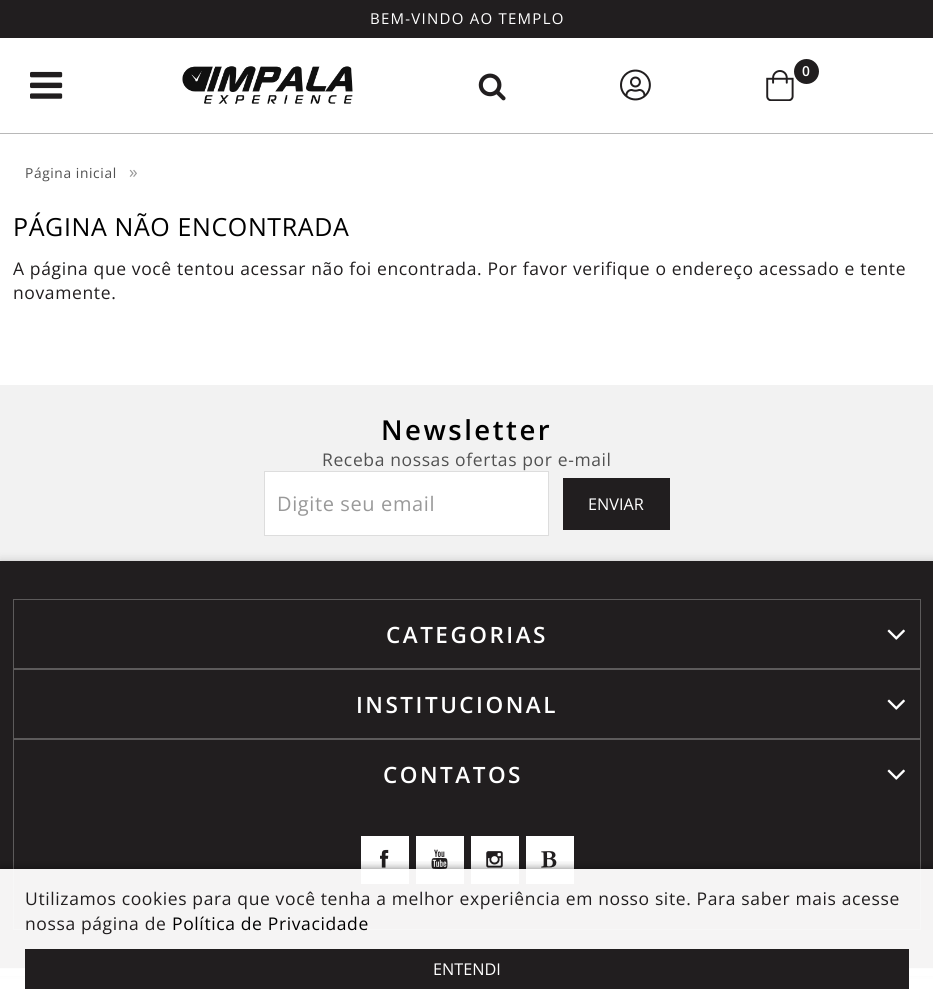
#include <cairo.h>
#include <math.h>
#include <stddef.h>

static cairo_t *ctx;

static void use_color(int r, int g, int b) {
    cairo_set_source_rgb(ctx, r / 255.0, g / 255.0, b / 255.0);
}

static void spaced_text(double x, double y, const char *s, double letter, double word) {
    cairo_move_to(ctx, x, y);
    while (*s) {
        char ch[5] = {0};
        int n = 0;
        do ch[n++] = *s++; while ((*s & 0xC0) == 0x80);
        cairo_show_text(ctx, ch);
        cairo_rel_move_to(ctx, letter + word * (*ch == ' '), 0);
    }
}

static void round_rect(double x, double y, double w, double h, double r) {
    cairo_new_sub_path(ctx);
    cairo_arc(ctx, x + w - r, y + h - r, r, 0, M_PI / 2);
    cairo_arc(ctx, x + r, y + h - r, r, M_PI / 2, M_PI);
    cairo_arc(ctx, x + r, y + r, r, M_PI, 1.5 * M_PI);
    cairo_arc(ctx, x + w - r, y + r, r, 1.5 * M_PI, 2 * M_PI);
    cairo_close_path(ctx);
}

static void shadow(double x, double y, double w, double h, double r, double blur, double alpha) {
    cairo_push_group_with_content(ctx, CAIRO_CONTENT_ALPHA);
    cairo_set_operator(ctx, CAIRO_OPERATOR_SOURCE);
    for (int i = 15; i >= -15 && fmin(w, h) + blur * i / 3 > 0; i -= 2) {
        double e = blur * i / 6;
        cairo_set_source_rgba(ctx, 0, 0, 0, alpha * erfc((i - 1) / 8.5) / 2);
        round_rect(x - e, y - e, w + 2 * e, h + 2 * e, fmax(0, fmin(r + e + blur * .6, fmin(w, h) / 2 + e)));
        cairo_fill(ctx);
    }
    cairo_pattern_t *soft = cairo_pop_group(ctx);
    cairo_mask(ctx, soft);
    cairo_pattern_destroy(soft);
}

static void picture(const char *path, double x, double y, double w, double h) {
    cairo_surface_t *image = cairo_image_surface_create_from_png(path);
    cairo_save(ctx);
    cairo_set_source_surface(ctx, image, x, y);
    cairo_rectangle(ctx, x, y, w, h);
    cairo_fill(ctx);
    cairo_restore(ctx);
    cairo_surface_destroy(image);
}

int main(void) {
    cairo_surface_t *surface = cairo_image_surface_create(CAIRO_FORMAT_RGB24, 933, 1006);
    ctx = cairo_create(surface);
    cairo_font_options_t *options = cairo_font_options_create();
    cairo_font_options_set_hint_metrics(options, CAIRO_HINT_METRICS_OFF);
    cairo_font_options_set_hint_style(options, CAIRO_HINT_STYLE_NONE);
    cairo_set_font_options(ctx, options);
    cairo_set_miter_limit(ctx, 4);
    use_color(255, 255, 255);
    cairo_paint(ctx);
    use_color(33, 30, 31);
    cairo_rectangle(ctx, 0, 0, 933, 38);
    cairo_fill(ctx);
    cairo_select_font_face(ctx, "Open Sans", CAIRO_FONT_SLANT_NORMAL, CAIRO_FONT_WEIGHT_NORMAL);
    cairo_set_font_size(ctx, 15);
    use_color(255, 255, 255);
    spaced_text(370, 24, "BEM-VINDO AO TEMPLO", 1.25, 0);
    use_color(184, 184, 184);
    cairo_rectangle(ctx, 0, 133, 933, 1);
    cairo_fill(ctx);
    picture("img1.png", 30, 71, 33, 28);
    picture("img2.png", 182, 66, 171, 38);
    picture("img3.png", 478, 73, 28, 28);
    picture("img4.png", 620, 69, 31, 32);
    picture("img5.png", 766, 70, 28, 31);
    use_color(33, 30, 31);
    cairo_arc(ctx, 806.5, 71.5, 12.5, 0, 2 * M_PI);
    cairo_fill(ctx);
    cairo_select_font_face(ctx, "Open Sans SemiBold", CAIRO_FONT_SLANT_NORMAL, CAIRO_FONT_WEIGHT_NORMAL);
    cairo_set_font_size(ctx, 13.75);
    use_color(255, 255, 255);
    spaced_text(802, 76, "0", 0.62, 0);
    cairo_select_font_face(ctx, "Open Sans", CAIRO_FONT_SLANT_NORMAL, CAIRO_FONT_WEIGHT_NORMAL);
    use_color(81, 81, 81);
    spaced_text(25, 178, "Página inicial", 0.62, 0);
    cairo_set_font_size(ctx, 17.5);
    use_color(153, 153, 153);
    spaced_text(129, 178, "»", 0.62, 0);
    cairo_set_font_size(ctx, 25);
    use_color(0, 0, 0);
    spaced_text(13, 236, "PÁGINA NÃO ENCONTRADA", 0.62, 0);
    cairo_set_font_size(ctx, 17.5);
    use_color(33, 30, 31);
    spaced_text(13, 275, "A página que você tentou acessar não foi encontrada. Por favor verifique o endereço acessado e tente", 0.62, 0);
    spaced_text(13, 299, "novamente.", 0.62, 0);
    use_color(242, 242, 242);
    cairo_rectangle(ctx, 0, 385, 933, 176);
    cairo_fill(ctx);
    cairo_select_font_face(ctx, "Open Sans SemiBold", CAIRO_FONT_SLANT_NORMAL, CAIRO_FONT_WEIGHT_NORMAL);
    cairo_set_font_size(ctx, 27.5);
    use_color(0, 0, 0);
    spaced_text(381, 440, "Newsletter", 2.5, 0);
    cairo_select_font_face(ctx, "Open Sans", CAIRO_FONT_SLANT_NORMAL, CAIRO_FONT_WEIGHT_NORMAL);
    cairo_set_font_size(ctx, 17.5);
    use_color(81, 81, 81);
    spaced_text(322, 466, "Receba nossas ofertas por e-mail", 0.62, 0);
    use_color(255, 255, 255);
    cairo_rectangle(ctx, 264.5, 471.5, 284, 64);
    cairo_fill_preserve(ctx);
    use_color(221, 221, 221);
    cairo_set_line_width(ctx, 1);
    cairo_stroke(ctx);
    cairo_set_font_size(ctx, 20);
    use_color(153, 153, 153);
    spaced_text(277, 511, "Digite seu email", 0.62, 0);
    use_color(33, 30, 31);
    cairo_rectangle(ctx, 563, 478, 107, 52);
    cairo_fill(ctx);
    cairo_set_font_size(ctx, 16.25);
    use_color(255, 255, 255);
    cairo_move_to(ctx, 588, 510);
    cairo_show_text(ctx, "ENVIAR");
    use_color(0, 0, 0);
    shadow(0, 561, 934, 407, 0, 5, 0.2);
    use_color(33, 30, 31);
    cairo_rectangle(ctx, 0, 561, 933, 407);
    cairo_fill(ctx);
    cairo_rectangle(ctx, 13.5, 599.5, 907, 69);
    use_color(93, 91, 91);
    cairo_stroke(ctx);
    cairo_select_font_face(ctx, "Open Sans SemiBold", CAIRO_FONT_SLANT_NORMAL, CAIRO_FONT_WEIGHT_NORMAL);
    cairo_set_font_size(ctx, 22.5);
    use_color(255, 255, 255);
    spaced_text(386, 643, "CATEGORIAS", 2.5, 0);
    picture("img6.png", 887, 629, 18, 11);
    cairo_rectangle(ctx, 13.5, 669.5, 907, 69);
    use_color(93, 91, 91);
    cairo_stroke(ctx);
    use_color(255, 255, 255);
    spaced_text(356, 713, "INSTITUCIONAL", 2.5, 0);
    picture("img6.png", 887, 699, 18, 11);
    cairo_rectangle(ctx, 13.5, 739.5, 907, 190);
    use_color(93, 91, 91);
    cairo_stroke(ctx);
    use_color(255, 255, 255);
    spaced_text(383, 783, "CONTATOS", 2.5, 0);
    picture("img6.png", 887, 769, 18, 11);
    cairo_rectangle(ctx, 361, 836, 48, 48);
    cairo_fill(ctx);
    picture("img7.png", 380, 849, 9, 19);
    cairo_rectangle(ctx, 416, 836, 48, 48);
    cairo_fill(ctx);
    picture("img8.png", 431, 849, 17, 20);
    cairo_rectangle(ctx, 471, 836, 48, 48);
    cairo_fill(ctx);
    picture("img9.png", 486, 851, 17, 17);
    cairo_rectangle(ctx, 526, 836, 48, 48);
    cairo_fill(ctx);
    picture("img10.png", 541, 851, 16, 17);
    cairo_rectangle(ctx, 0, 969, 933, 7);
    cairo_fill(ctx);
    use_color(221, 221, 221);
    cairo_rectangle(ctx, 0, 968, 933, 1);
    cairo_fill(ctx);
    cairo_save(ctx);
    cairo_rectangle(ctx, 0, 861, 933, 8);
    cairo_clip(ctx);
    use_color(0, 0, 0);
    shadow(0, 869, 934, 137, 0, 4.5, 0.5);
    cairo_restore(ctx);
    cairo_set_source_rgba(ctx, 1, 1, 1, 0.95);
    cairo_rectangle(ctx, 0, 869, 933, 100);
    cairo_fill(ctx);
    cairo_select_font_face(ctx, "Open Sans", CAIRO_FONT_SLANT_NORMAL, CAIRO_FONT_WEIGHT_NORMAL);
    cairo_set_font_size(ctx, 17.5);
    use_color(33, 30, 31);
    spaced_text(25, 905, "Utilizamos cookies para que você tenha a melhor experiência em nosso site. Para saber mais acesse", 0.62, 0);
    spaced_text(25, 930, "nossa página de", 0.62, 0);
    use_color(0, 0, 0);
    spaced_text(172, 930, "Política de Privacidade", 0.62, 0);
    use_color(33, 30, 31);
    cairo_rectangle(ctx, 25, 949, 884, 40);
    cairo_fill(ctx);
    cairo_set_font_size(ctx, 16.25);
    use_color(255, 255, 255);
    cairo_move_to(ctx, 433, 975);
    cairo_show_text(ctx, "ENTENDI");
    cairo_surface_write_to_png(surface, "result.png");
    cairo_font_options_destroy(options);
    cairo_destroy(ctx);
    cairo_surface_destroy(surface);
    return 0;
}
